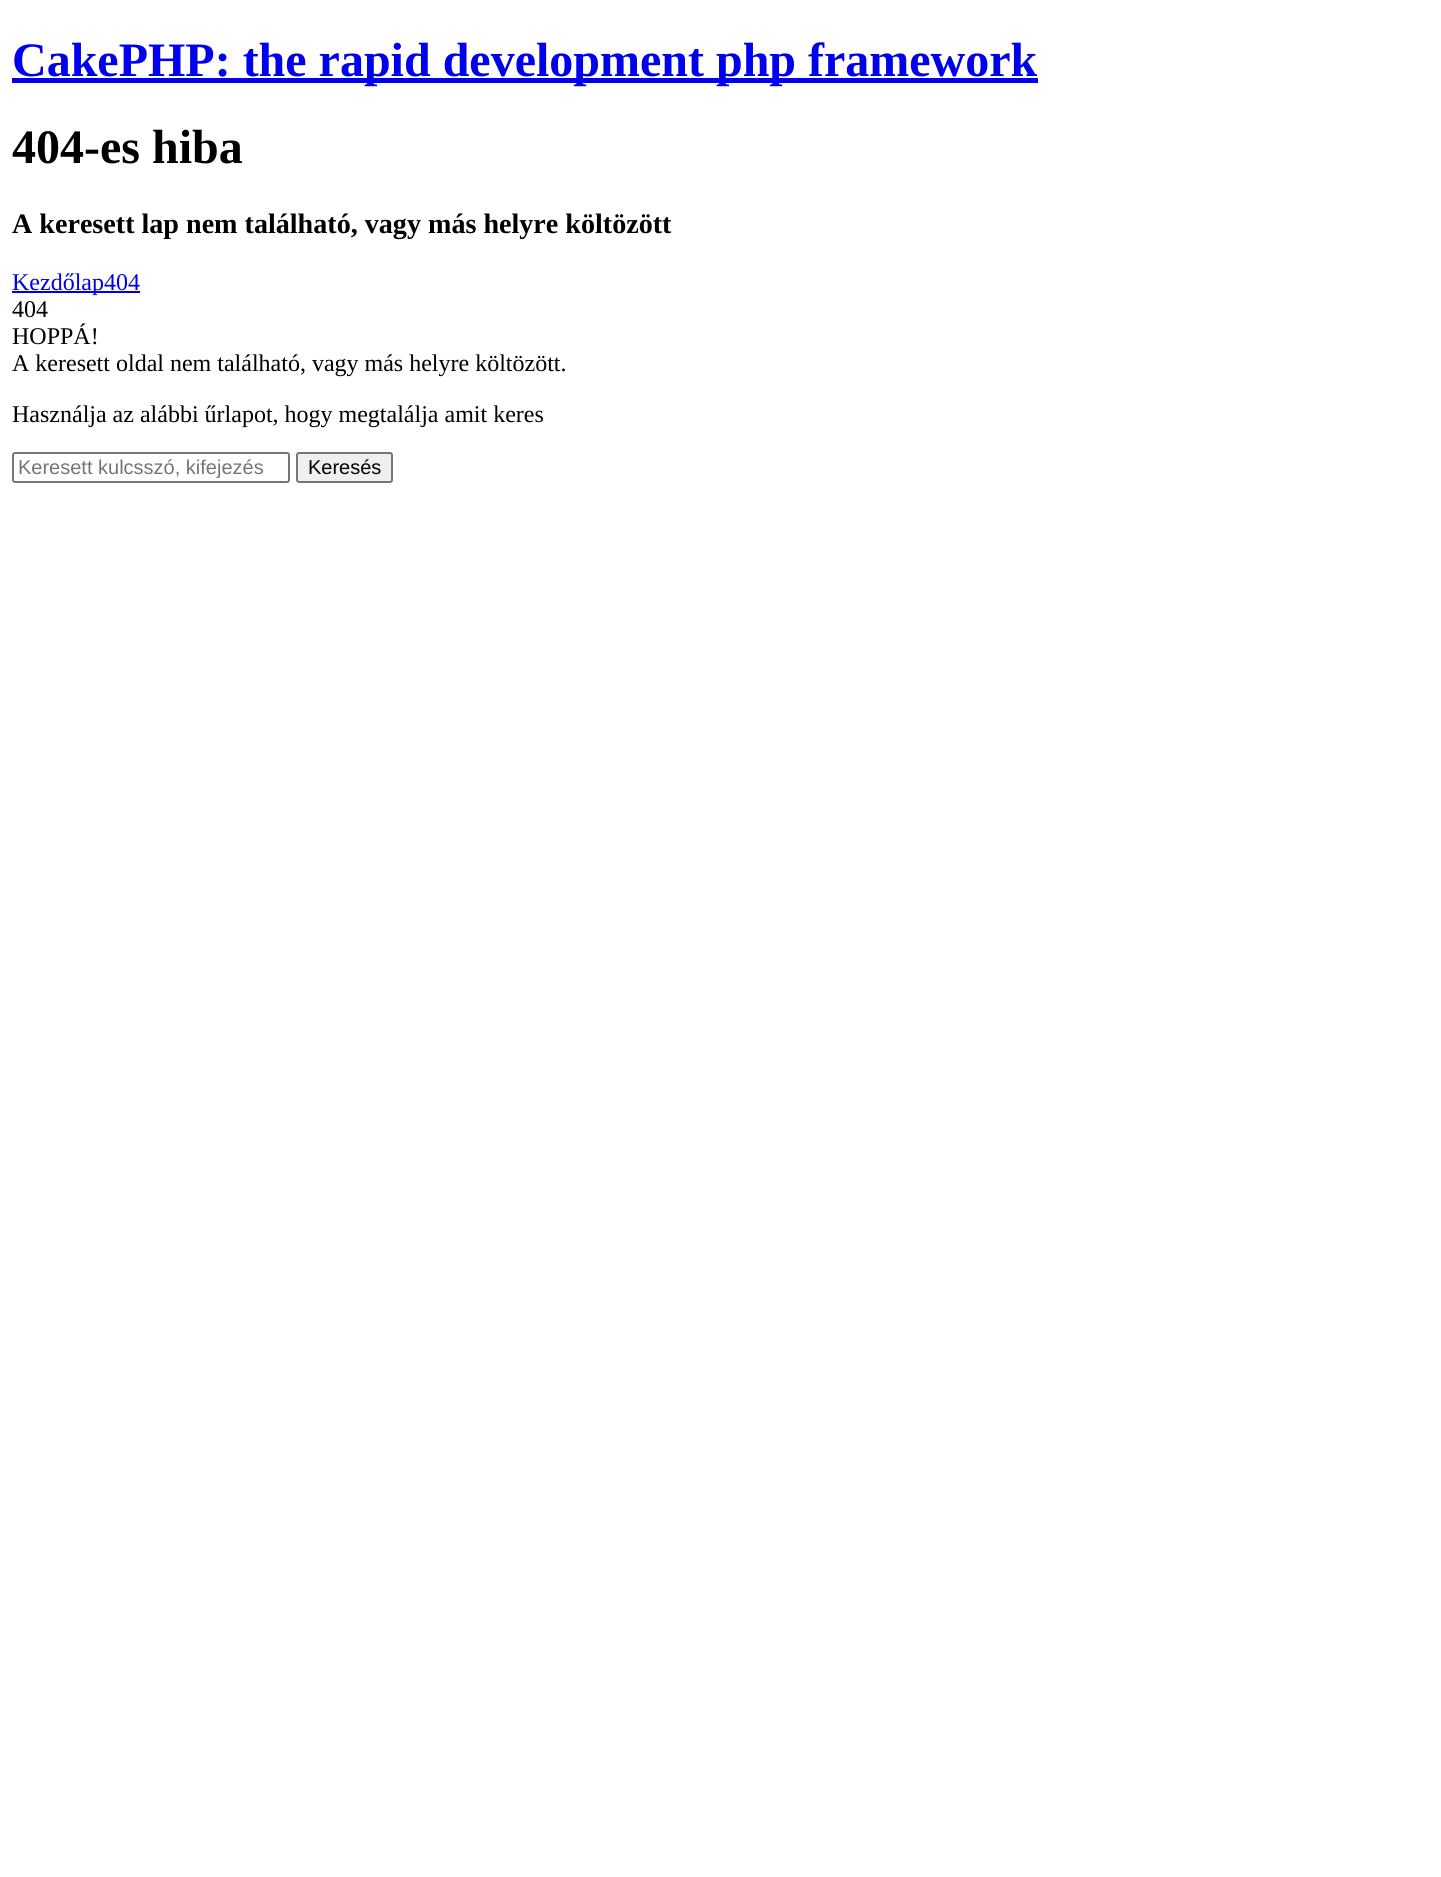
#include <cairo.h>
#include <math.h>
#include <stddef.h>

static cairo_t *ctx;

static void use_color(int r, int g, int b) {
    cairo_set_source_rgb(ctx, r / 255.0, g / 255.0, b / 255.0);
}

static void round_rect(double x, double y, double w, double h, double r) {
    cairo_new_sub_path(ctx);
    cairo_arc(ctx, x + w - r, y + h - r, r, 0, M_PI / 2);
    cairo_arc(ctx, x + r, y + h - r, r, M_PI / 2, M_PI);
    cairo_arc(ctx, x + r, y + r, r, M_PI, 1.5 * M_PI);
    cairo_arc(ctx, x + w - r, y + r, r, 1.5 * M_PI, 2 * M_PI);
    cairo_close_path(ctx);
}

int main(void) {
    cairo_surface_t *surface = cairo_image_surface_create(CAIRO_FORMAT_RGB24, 1441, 1877);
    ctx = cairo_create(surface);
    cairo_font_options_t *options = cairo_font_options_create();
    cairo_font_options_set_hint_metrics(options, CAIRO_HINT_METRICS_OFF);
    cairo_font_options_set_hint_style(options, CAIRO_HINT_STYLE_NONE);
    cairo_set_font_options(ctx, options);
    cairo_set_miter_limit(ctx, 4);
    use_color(255, 255, 255);
    cairo_paint(ctx);
    use_color(0, 0, 238);
    cairo_rectangle(ctx, 12, 78, 1026, 5);
    cairo_fill(ctx);
    cairo_select_font_face(ctx, "Liberation Serif", CAIRO_FONT_SLANT_NORMAL, CAIRO_FONT_WEIGHT_BOLD);
    cairo_set_font_size(ctx, 48);
    cairo_move_to(ctx, 12, 76);
    cairo_show_text(ctx, "CakePHP: the rapid development php framework");
    use_color(0, 0, 0);
    cairo_move_to(ctx, 12, 163);
    cairo_show_text(ctx, "404-es hiba");
    cairo_set_font_size(ctx, 28.1);
    cairo_move_to(ctx, 12, 233);
    cairo_show_text(ctx, "A keresett lap nem található, vagy más helyre költözött");
    use_color(0, 0, 238);
    cairo_rectangle(ctx, 12, 291, 128, 2);
    cairo_fill(ctx);
    cairo_select_font_face(ctx, "Liberation Serif", CAIRO_FONT_SLANT_NORMAL, CAIRO_FONT_WEIGHT_NORMAL);
    cairo_set_font_size(ctx, 24);
    cairo_move_to(ctx, 12, 290);
    cairo_show_text(ctx, "Kezdőlap404");
    use_color(0, 0, 0);
    cairo_move_to(ctx, 12, 317);
    cairo_show_text(ctx, "404");
    cairo_move_to(ctx, 12, 344);
    cairo_show_text(ctx, "HOPPÁ!");
    cairo_move_to(ctx, 12, 371);
    cairo_show_text(ctx, "A keresett oldal nem található, vagy más helyre költözött.");
    cairo_move_to(ctx, 12, 422);
    cairo_show_text(ctx, "Használja az alábbi űrlapot, hogy megtalálja amit keres");
    round_rect(13, 453, 276, 29, 2);
    use_color(118, 118, 118);
    cairo_stroke(ctx);
    cairo_select_font_face(ctx, "Liberation Sans", CAIRO_FONT_SLANT_NORMAL, CAIRO_FONT_WEIGHT_NORMAL);
    cairo_set_font_size(ctx, 20);
    use_color(117, 117, 117);
    cairo_move_to(ctx, 18, 474);
    cairo_show_text(ctx, "Keresett kulcsszó, kifejezés");
    use_color(239, 239, 239);
    round_rect(297, 453, 95, 29, 2);
    cairo_fill_preserve(ctx);
    use_color(118, 118, 118);
    cairo_stroke(ctx);
    use_color(0, 0, 0);
    cairo_move_to(ctx, 308, 474);
    cairo_show_text(ctx, "Keresés");
    cairo_surface_write_to_png(surface, "result.png");
    cairo_font_options_destroy(options);
    cairo_destroy(ctx);
    cairo_surface_destroy(surface);
    return 0;
}
